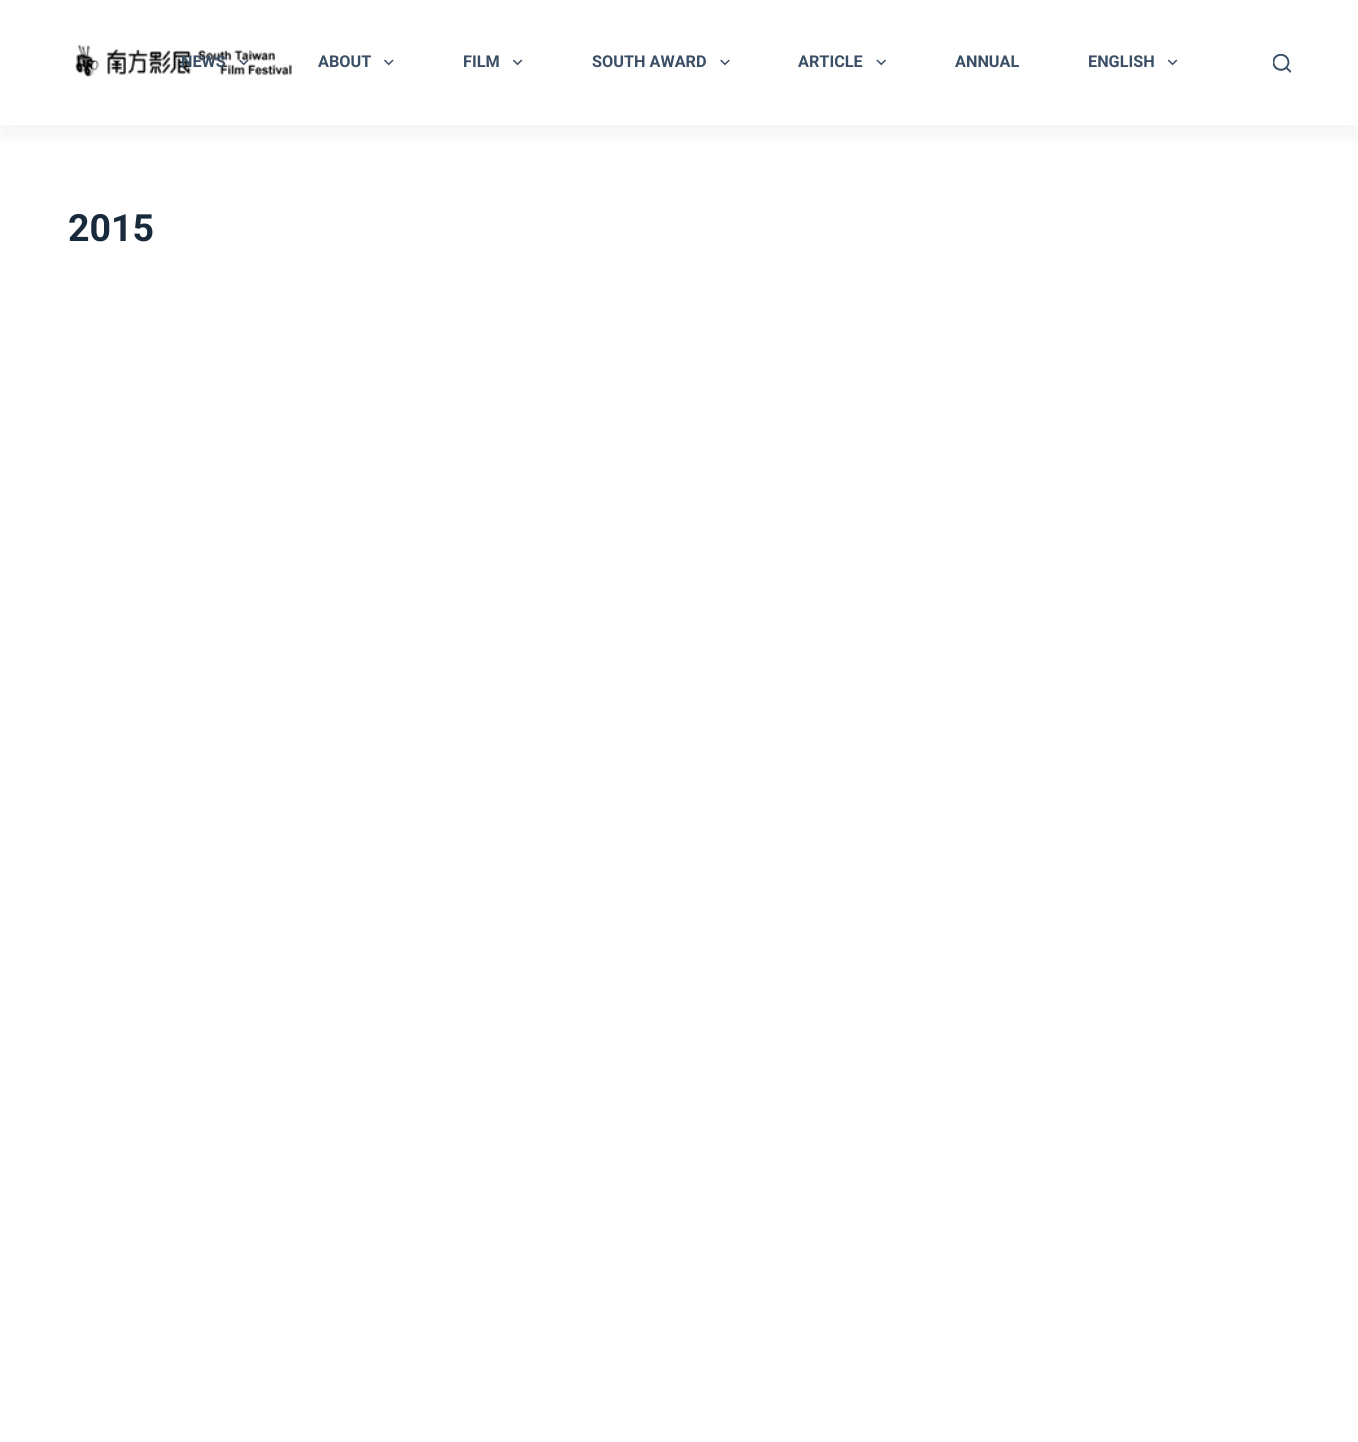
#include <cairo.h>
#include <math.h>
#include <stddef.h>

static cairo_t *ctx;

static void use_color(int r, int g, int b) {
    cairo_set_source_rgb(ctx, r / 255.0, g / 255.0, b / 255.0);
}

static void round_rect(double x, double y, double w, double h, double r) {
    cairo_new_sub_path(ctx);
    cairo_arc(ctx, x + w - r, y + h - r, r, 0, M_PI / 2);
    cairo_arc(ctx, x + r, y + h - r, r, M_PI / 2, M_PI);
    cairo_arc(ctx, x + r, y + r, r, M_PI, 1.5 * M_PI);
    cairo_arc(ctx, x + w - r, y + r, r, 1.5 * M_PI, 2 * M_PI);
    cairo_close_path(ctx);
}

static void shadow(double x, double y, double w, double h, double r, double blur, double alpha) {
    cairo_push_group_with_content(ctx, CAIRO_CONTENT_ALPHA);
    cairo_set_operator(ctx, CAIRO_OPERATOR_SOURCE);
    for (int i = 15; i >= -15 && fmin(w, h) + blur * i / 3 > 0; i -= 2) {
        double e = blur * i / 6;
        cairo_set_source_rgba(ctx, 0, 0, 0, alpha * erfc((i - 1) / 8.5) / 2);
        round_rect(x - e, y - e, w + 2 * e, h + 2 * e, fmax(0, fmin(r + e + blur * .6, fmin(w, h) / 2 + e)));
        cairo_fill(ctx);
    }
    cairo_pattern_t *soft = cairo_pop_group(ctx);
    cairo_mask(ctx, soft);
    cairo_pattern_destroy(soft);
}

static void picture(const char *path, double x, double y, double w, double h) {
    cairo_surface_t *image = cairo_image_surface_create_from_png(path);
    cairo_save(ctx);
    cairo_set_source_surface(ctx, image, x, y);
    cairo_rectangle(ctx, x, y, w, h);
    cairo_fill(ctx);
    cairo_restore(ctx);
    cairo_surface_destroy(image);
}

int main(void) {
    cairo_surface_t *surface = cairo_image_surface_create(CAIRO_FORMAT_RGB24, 1358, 1442);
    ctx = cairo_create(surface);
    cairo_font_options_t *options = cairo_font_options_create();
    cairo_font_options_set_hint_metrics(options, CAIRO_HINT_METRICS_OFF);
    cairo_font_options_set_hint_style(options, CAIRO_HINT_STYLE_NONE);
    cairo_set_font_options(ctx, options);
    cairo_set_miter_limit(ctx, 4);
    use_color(255, 255, 255);
    cairo_paint(ctx);
    cairo_save(ctx);
    cairo_rectangle(ctx, 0, 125, 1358, 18);
    cairo_clip(ctx);
    use_color(43, 61, 80);
    shadow(0, 13, 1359, 125, 0, 12.5, 0.06);
    cairo_restore(ctx);
    picture("img1.png", 75, 45, 217, 32);
    picture("img2.png", 1273, 54, 18, 19);
    cairo_select_font_face(ctx, "Roboto", CAIRO_FONT_SLANT_NORMAL, CAIRO_FONT_WEIGHT_BOLD);
    cairo_set_font_size(ctx, 16.25);
    use_color(58, 79, 102);
    cairo_move_to(ctx, 181, 67);
    cairo_show_text(ctx, "NEWS");
    picture("img3.png", 239, 59, 10, 7);
    cairo_move_to(ctx, 318, 67);
    cairo_show_text(ctx, "ABOUT");
    picture("img4.png", 384, 59, 10, 7);
    cairo_move_to(ctx, 463, 67);
    cairo_show_text(ctx, "FILM");
    picture("img5.png", 513, 59, 10, 7);
    cairo_move_to(ctx, 592, 67);
    cairo_show_text(ctx, "SOUTH AWARD");
    picture("img6.png", 720, 59, 10, 7);
    cairo_move_to(ctx, 798, 67);
    cairo_show_text(ctx, "ARTICLE");
    picture("img7.png", 876, 59, 10, 7);
    cairo_move_to(ctx, 955, 67);
    cairo_show_text(ctx, "ANNUAL");
    cairo_move_to(ctx, 1088, 67);
    cairo_show_text(ctx, "ENGLISH");
    picture("img5.png", 1168, 59, 10, 7);
    cairo_set_font_size(ctx, 37.5);
    use_color(25, 42, 61);
    cairo_move_to(ctx, 68, 241);
    cairo_show_text(ctx, "2015");
    cairo_surface_write_to_png(surface, "result.png");
    cairo_font_options_destroy(options);
    cairo_destroy(ctx);
    cairo_surface_destroy(surface);
    return 0;
}
